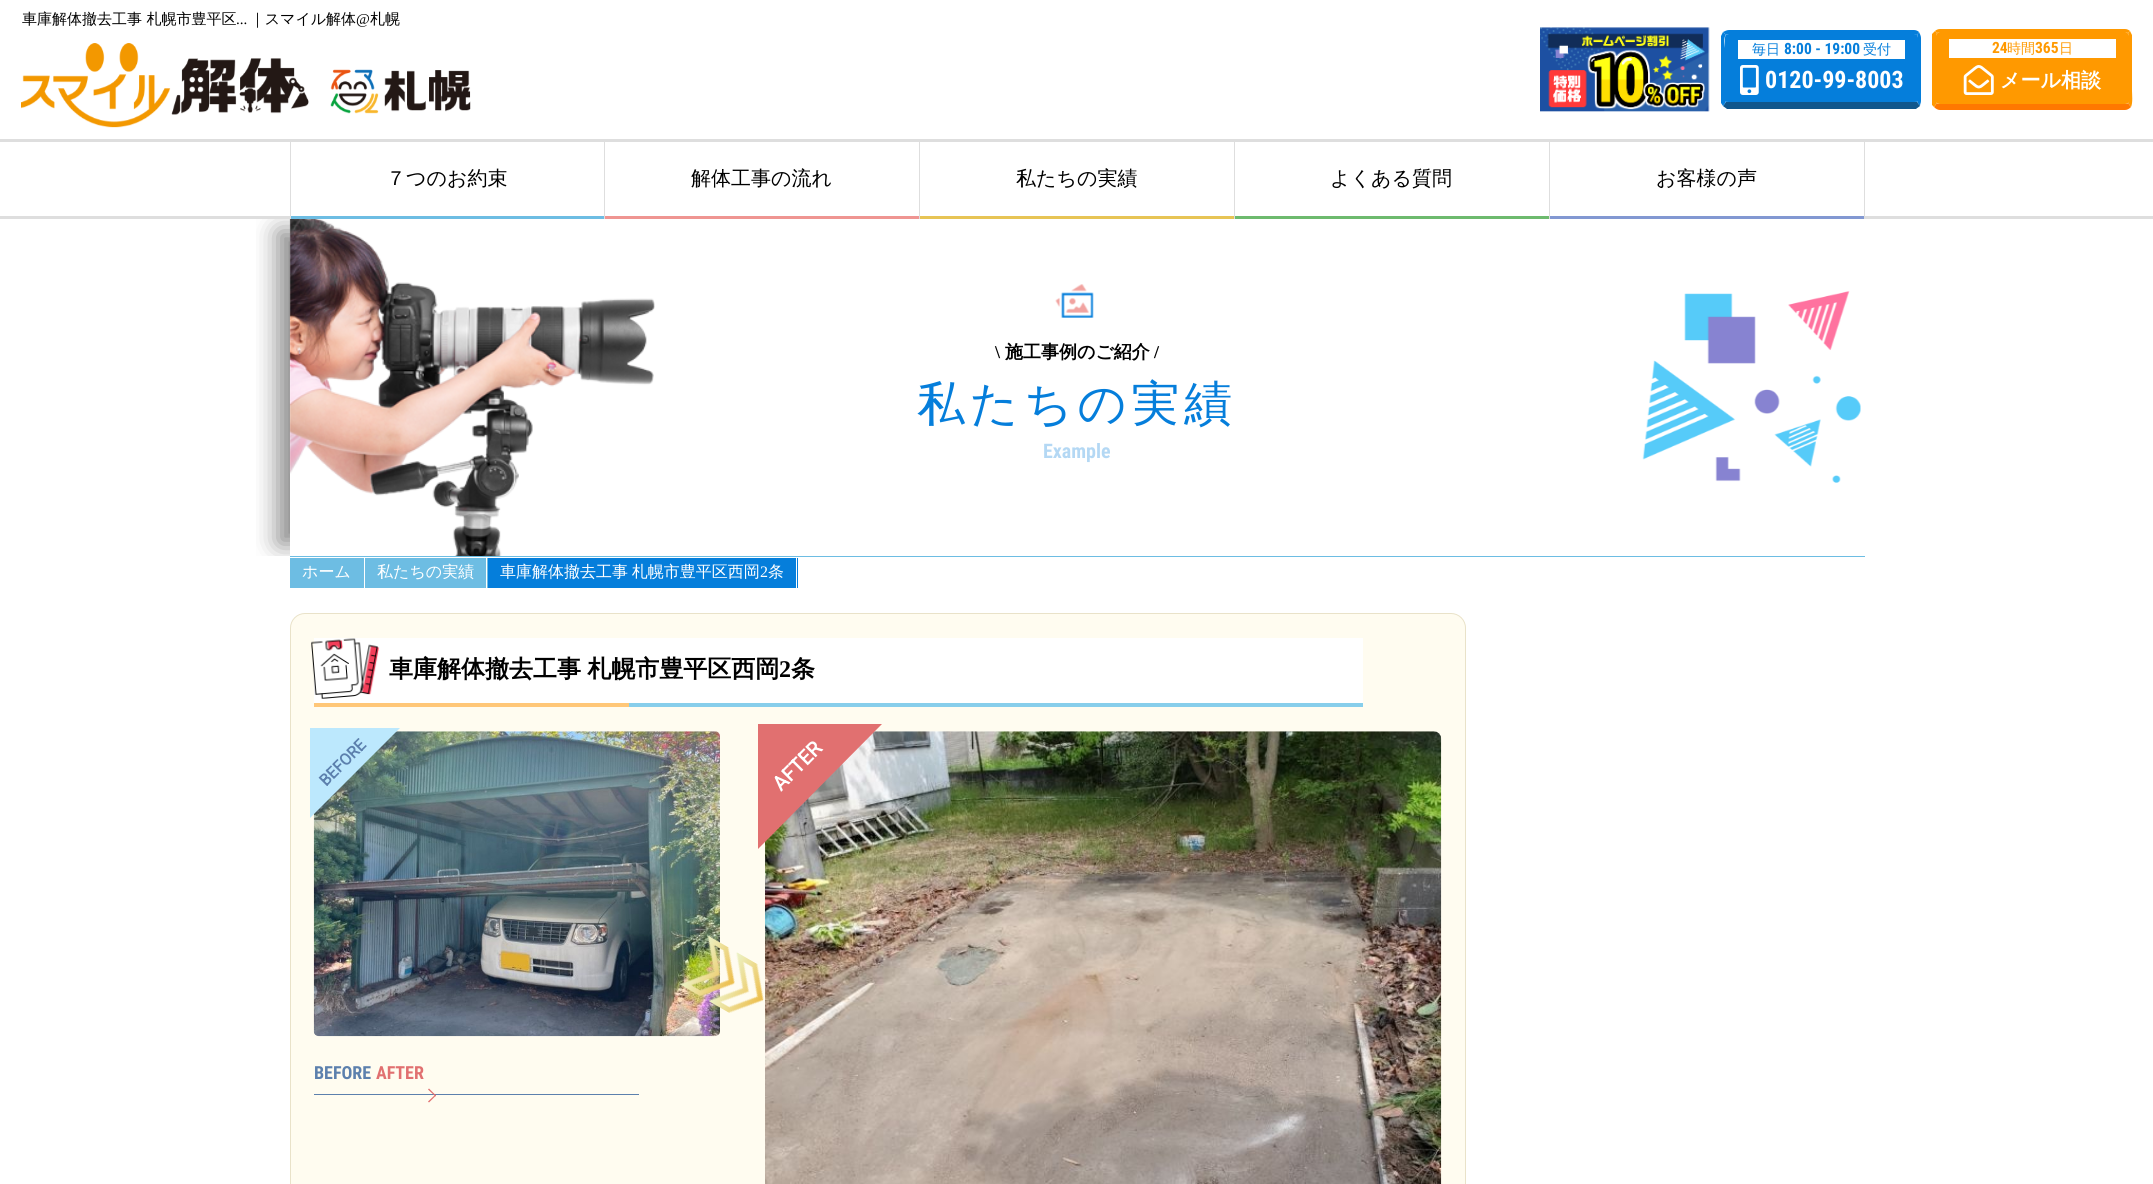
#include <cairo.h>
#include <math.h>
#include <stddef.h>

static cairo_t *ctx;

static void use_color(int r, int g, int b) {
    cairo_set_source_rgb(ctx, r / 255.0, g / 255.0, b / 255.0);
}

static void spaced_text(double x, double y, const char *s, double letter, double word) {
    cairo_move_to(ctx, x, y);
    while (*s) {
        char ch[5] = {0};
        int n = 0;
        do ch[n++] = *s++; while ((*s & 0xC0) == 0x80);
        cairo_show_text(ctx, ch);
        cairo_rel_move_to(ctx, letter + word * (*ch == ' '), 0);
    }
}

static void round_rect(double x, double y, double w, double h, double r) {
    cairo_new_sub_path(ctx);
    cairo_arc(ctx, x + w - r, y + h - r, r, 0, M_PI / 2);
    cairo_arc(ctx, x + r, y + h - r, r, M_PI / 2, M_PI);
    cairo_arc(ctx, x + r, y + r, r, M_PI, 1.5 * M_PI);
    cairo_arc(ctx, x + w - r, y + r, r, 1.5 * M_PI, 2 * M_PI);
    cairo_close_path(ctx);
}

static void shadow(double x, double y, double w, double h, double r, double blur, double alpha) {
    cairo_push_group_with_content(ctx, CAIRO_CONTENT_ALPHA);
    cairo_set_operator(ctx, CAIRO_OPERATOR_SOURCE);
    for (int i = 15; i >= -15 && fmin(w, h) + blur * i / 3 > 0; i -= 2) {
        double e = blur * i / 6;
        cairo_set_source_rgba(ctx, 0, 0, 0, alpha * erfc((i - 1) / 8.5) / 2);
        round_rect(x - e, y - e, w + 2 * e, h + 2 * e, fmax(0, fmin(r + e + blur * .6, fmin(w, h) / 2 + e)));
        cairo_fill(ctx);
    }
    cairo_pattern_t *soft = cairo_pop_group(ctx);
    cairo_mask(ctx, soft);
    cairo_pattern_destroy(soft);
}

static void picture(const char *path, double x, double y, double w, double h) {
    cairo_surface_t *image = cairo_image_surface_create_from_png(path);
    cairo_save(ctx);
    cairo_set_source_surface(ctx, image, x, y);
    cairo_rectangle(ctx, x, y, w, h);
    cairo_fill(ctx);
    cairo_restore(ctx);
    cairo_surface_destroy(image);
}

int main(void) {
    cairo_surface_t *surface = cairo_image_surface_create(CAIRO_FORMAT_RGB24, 2153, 1184);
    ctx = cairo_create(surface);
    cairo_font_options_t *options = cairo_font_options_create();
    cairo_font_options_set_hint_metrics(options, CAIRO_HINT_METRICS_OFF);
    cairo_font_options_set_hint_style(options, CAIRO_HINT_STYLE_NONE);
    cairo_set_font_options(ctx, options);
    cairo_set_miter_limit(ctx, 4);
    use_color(255, 255, 255);
    cairo_paint(ctx);
    cairo_select_font_face(ctx, "WenQuanYi Zen Hei Medium", CAIRO_FONT_SLANT_NORMAL, CAIRO_FONT_WEIGHT_NORMAL);
    cairo_set_font_size(ctx, 15);
    use_color(0, 0, 0);
    cairo_move_to(ctx, 22, 24);
    cairo_show_text(ctx, "車庫解体撤去工事 札幌市豊平区");
    cairo_select_font_face(ctx, "Liberation Serif", CAIRO_FONT_SLANT_NORMAL, CAIRO_FONT_WEIGHT_NORMAL);
    cairo_move_to(ctx, 236, 24);
    cairo_show_text(ctx, "...");
    cairo_select_font_face(ctx, "WenQuanYi Zen Hei Medium", CAIRO_FONT_SLANT_NORMAL, CAIRO_FONT_WEIGHT_NORMAL);
    cairo_move_to(ctx, 250, 24);
    cairo_show_text(ctx, "｜スマイル解体");
    cairo_select_font_face(ctx, "Liberation Serif", CAIRO_FONT_SLANT_NORMAL, CAIRO_FONT_WEIGHT_NORMAL);
    cairo_move_to(ctx, 356, 24);
    cairo_show_text(ctx, "@");
    cairo_select_font_face(ctx, "WenQuanYi Zen Hei Medium", CAIRO_FONT_SLANT_NORMAL, CAIRO_FONT_WEIGHT_NORMAL);
    cairo_move_to(ctx, 370, 24);
    cairo_show_text(ctx, "札幌");
    picture("img1.png", 21, 43, 450, 85);
    picture("img2.png", 1540, 27, 170, 85);
    use_color(5, 126, 219);
    cairo_new_path(ctx);
    cairo_move_to(ctx, 1729, 34);
    cairo_line_to(ctx, 1914, 34);
    cairo_curve_to(ctx, 1916, 34, 1918, 35, 1918, 38);
    cairo_line_to(ctx, 1918, 101);
    cairo_curve_to(ctx, 1918, 102, 1916, 102, 1914, 102);
    cairo_line_to(ctx, 1729, 102);
    cairo_curve_to(ctx, 1727, 102, 1725, 102, 1725, 101);
    cairo_line_to(ctx, 1725, 38);
    cairo_curve_to(ctx, 1725, 35, 1727, 34, 1729, 34);
    cairo_close_path(ctx);
    cairo_fill(ctx);
    cairo_new_path(ctx);
    cairo_move_to(ctx, 1729, 30);
    cairo_curve_to(ctx, 1727, 30, 1725, 31, 1723, 32);
    cairo_line_to(ctx, 1726, 35);
    cairo_curve_to(ctx, 1727, 34, 1728, 34, 1729, 34);
    cairo_line_to(ctx, 1914, 34);
    cairo_line_to(ctx, 1917, 35);
    cairo_line_to(ctx, 1919, 32);
    cairo_curve_to(ctx, 1918, 31, 1916, 30, 1914, 30);
    cairo_close_path(ctx);
    cairo_fill(ctx);
    cairo_new_path(ctx);
    cairo_move_to(ctx, 1919, 32);
    cairo_curve_to(ctx, 1920, 34, 1921, 36, 1921, 38);
    cairo_line_to(ctx, 1921, 101);
    cairo_curve_to(ctx, 1921, 103, 1920, 104, 1920, 106);
    cairo_line_to(ctx, 1917, 102);
    cairo_line_to(ctx, 1918, 101);
    cairo_line_to(ctx, 1918, 38);
    cairo_curve_to(ctx, 1918, 36, 1917, 35, 1917, 35);
    cairo_close_path(ctx);
    cairo_fill(ctx);
    use_color(16, 87, 141);
    cairo_new_path(ctx);
    cairo_move_to(ctx, 1727, 109);
    cairo_curve_to(ctx, 1726, 108, 1724, 107, 1723, 106);
    cairo_line_to(ctx, 1726, 102);
    cairo_line_to(ctx, 1917, 102);
    cairo_line_to(ctx, 1920, 106);
    cairo_curve_to(ctx, 1919, 107, 1917, 108, 1916, 109);
    cairo_close_path(ctx);
    cairo_fill(ctx);
    use_color(5, 126, 219);
    cairo_new_path(ctx);
    cairo_move_to(ctx, 1721, 36);
    cairo_line_to(ctx, 1723, 32);
    cairo_line_to(ctx, 1726, 35);
    cairo_curve_to(ctx, 1723, 37, 1725, 47, 1725, 48);
    cairo_line_to(ctx, 1725, 101);
    cairo_line_to(ctx, 1726, 102);
    cairo_line_to(ctx, 1723, 106);
    cairo_line_to(ctx, 1721, 103);
    cairo_close_path(ctx);
    cairo_fill(ctx);
    use_color(255, 255, 255);
    cairo_rectangle(ctx, 1738, 40, 167, 19);
    cairo_fill(ctx);
    cairo_set_font_size(ctx, 14);
    use_color(5, 126, 219);
    cairo_move_to(ctx, 1752, 54);
    cairo_show_text(ctx, "毎日");
    cairo_select_font_face(ctx, "Roboto Condensed", CAIRO_FONT_SLANT_NORMAL, CAIRO_FONT_WEIGHT_BOLD);
    cairo_set_font_size(ctx, 15.5);
    cairo_move_to(ctx, 1784, 54);
    cairo_show_text(ctx, "8:00 - 19:00");
    cairo_select_font_face(ctx, "WenQuanYi Zen Hei Medium", CAIRO_FONT_SLANT_NORMAL, CAIRO_FONT_WEIGHT_NORMAL);
    cairo_set_font_size(ctx, 14);
    cairo_move_to(ctx, 1863, 54);
    cairo_show_text(ctx, "受付");
    picture("img3.png", 1740, 65, 19, 30);
    cairo_select_font_face(ctx, "Roboto Condensed", CAIRO_FONT_SLANT_NORMAL, CAIRO_FONT_WEIGHT_BOLD);
    cairo_set_font_size(ctx, 24);
    use_color(255, 255, 255);
    cairo_move_to(ctx, 1765, 88);
    cairo_show_text(ctx, "0120-99-8003");
    use_color(255, 153, 0);
    cairo_new_path(ctx);
    cairo_move_to(ctx, 1940, 32);
    cairo_line_to(ctx, 2125, 32);
    cairo_curve_to(ctx, 2127, 32, 2129, 34, 2129, 36);
    cairo_line_to(ctx, 2129, 102);
    cairo_curve_to(ctx, 2129, 103, 2127, 104, 2125, 104);
    cairo_line_to(ctx, 1940, 104);
    cairo_curve_to(ctx, 1938, 104, 1936, 103, 1936, 102);
    cairo_line_to(ctx, 1936, 36);
    cairo_curve_to(ctx, 1936, 34, 1938, 32, 1940, 32);
    cairo_close_path(ctx);
    cairo_fill(ctx);
    cairo_new_path(ctx);
    cairo_move_to(ctx, 1940, 29);
    cairo_curve_to(ctx, 1938, 29, 1936, 30, 1935, 31);
    cairo_line_to(ctx, 1937, 33);
    cairo_line_to(ctx, 1940, 32);
    cairo_line_to(ctx, 2125, 32);
    cairo_line_to(ctx, 2128, 33);
    cairo_line_to(ctx, 2130, 31);
    cairo_curve_to(ctx, 2129, 30, 2127, 29, 2125, 29);
    cairo_close_path(ctx);
    cairo_fill(ctx);
    cairo_new_path(ctx);
    cairo_move_to(ctx, 2131, 107);
    cairo_curve_to(ctx, 2133, 103, 2132, 94, 2132, 91);
    cairo_line_to(ctx, 2132, 35);
    cairo_line_to(ctx, 2130, 31);
    cairo_line_to(ctx, 2128, 33);
    cairo_line_to(ctx, 2129, 36);
    cairo_line_to(ctx, 2129, 102);
    cairo_line_to(ctx, 2128, 103);
    cairo_close_path(ctx);
    cairo_fill(ctx);
    use_color(255, 120, 0);
    cairo_new_path(ctx);
    cairo_move_to(ctx, 1940, 110);
    cairo_line_to(ctx, 2125, 110);
    cairo_curve_to(ctx, 2127, 110, 2129, 109, 2131, 107);
    cairo_line_to(ctx, 2128, 103);
    cairo_curve_to(ctx, 2128, 104, 2126, 104, 2125, 104);
    cairo_line_to(ctx, 1940, 104);
    cairo_curve_to(ctx, 1939, 104, 1937, 104, 1937, 103);
    cairo_line_to(ctx, 1934, 107);
    cairo_curve_to(ctx, 1936, 109, 1938, 110, 1940, 110);
    cairo_close_path(ctx);
    cairo_fill(ctx);
    use_color(255, 153, 0);
    cairo_new_path(ctx);
    cairo_move_to(ctx, 1932, 34);
    cairo_line_to(ctx, 1935, 31);
    cairo_line_to(ctx, 1937, 33);
    cairo_line_to(ctx, 1936, 36);
    cairo_line_to(ctx, 1936, 102);
    cairo_line_to(ctx, 1937, 103);
    cairo_line_to(ctx, 1934, 107);
    cairo_line_to(ctx, 1932, 105);
    cairo_close_path(ctx);
    cairo_fill(ctx);
    use_color(255, 255, 255);
    cairo_rectangle(ctx, 1949, 39, 167, 19);
    cairo_fill(ctx);
    cairo_set_font_size(ctx, 15.5);
    use_color(255, 153, 0);
    cairo_move_to(ctx, 1992, 53);
    cairo_show_text(ctx, "24");
    cairo_select_font_face(ctx, "WenQuanYi Zen Hei Medium", CAIRO_FONT_SLANT_NORMAL, CAIRO_FONT_WEIGHT_NORMAL);
    cairo_set_font_size(ctx, 14);
    cairo_move_to(ctx, 2007, 53);
    cairo_show_text(ctx, "時間");
    cairo_select_font_face(ctx, "Roboto Condensed", CAIRO_FONT_SLANT_NORMAL, CAIRO_FONT_WEIGHT_BOLD);
    cairo_set_font_size(ctx, 15.5);
    cairo_move_to(ctx, 2035, 53);
    cairo_show_text(ctx, "365");
    cairo_select_font_face(ctx, "WenQuanYi Zen Hei Medium", CAIRO_FONT_SLANT_NORMAL, CAIRO_FONT_WEIGHT_NORMAL);
    cairo_set_font_size(ctx, 14);
    cairo_move_to(ctx, 2059, 53);
    cairo_show_text(ctx, "日");
    picture("img4.png", 1963, 65, 31, 30);
    cairo_select_font_face(ctx, "WenQuanYi Zen Hei", CAIRO_FONT_SLANT_NORMAL, CAIRO_FONT_WEIGHT_BOLD);
    cairo_set_font_size(ctx, 20);
    use_color(255, 255, 255);
    cairo_move_to(ctx, 2000, 87);
    cairo_show_text(ctx, "メール相談");
    use_color(222, 222, 222);
    cairo_rectangle(ctx, 0, 139, 2153, 3);
    cairo_fill(ctx);
    cairo_rectangle(ctx, 0, 216, 2153, 3);
    cairo_fill(ctx);
    cairo_rectangle(ctx, 604, 141, 1, 75);
    cairo_fill(ctx);
    cairo_rectangle(ctx, 290, 141, 1, 75);
    cairo_fill(ctx);
    cairo_select_font_face(ctx, "WenQuanYi Zen Hei Medium", CAIRO_FONT_SLANT_NORMAL, CAIRO_FONT_WEIGHT_NORMAL);
    use_color(0, 0, 0);
    cairo_move_to(ctx, 386, 185);
    cairo_show_text(ctx, "７つのお約束");
    use_color(222, 222, 222);
    cairo_rectangle(ctx, 919, 141, 1, 75);
    cairo_fill(ctx);
    cairo_rectangle(ctx, 1234, 141, 1, 75);
    cairo_fill(ctx);
    cairo_rectangle(ctx, 1549, 141, 1, 75);
    cairo_fill(ctx);
    cairo_rectangle(ctx, 1864, 141, 1, 75);
    cairo_fill(ctx);
    cairo_save(ctx);
    cairo_rectangle(ctx, 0, 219, 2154, 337);
    cairo_clip(ctx);
    cairo_rectangle(ctx, 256, 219, 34, 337);
    cairo_clip(ctx);
    use_color(0, 0, 0);
    shadow(278, 231, 1550, 313, 0, 12.5, 0.47);
    cairo_restore(ctx);
    use_color(109, 189, 227);
    cairo_rectangle(ctx, 291, 216, 313, 3);
    cairo_fill(ctx);
    use_color(0, 0, 0);
    cairo_move_to(ctx, 691, 185);
    cairo_show_text(ctx, "解体工事の流れ");
    use_color(239, 149, 146);
    cairo_rectangle(ctx, 605, 216, 314, 3);
    cairo_fill(ctx);
    use_color(0, 0, 0);
    cairo_move_to(ctx, 1016, 185);
    cairo_show_text(ctx, "私たちの実績");
    use_color(231, 196, 85);
    cairo_rectangle(ctx, 920, 216, 314, 3);
    cairo_fill(ctx);
    use_color(0, 0, 0);
    cairo_move_to(ctx, 1330, 185);
    cairo_show_text(ctx, "よくある質問");
    use_color(109, 186, 110);
    cairo_rectangle(ctx, 1235, 216, 314, 3);
    cairo_fill(ctx);
    use_color(0, 0, 0);
    cairo_move_to(ctx, 1656, 185);
    cairo_show_text(ctx, "お客様の声");
    use_color(130, 152, 210);
    cairo_rectangle(ctx, 1550, 216, 314, 3);
    cairo_fill(ctx);
    picture("img5.png", 289, 219, 366, 337);
    picture("img6.png", 1055, 284, 39, 34);
    cairo_select_font_face(ctx, "Liberation Serif", CAIRO_FONT_SLANT_NORMAL, CAIRO_FONT_WEIGHT_BOLD);
    cairo_set_font_size(ctx, 18);
    use_color(0, 0, 0);
    cairo_move_to(ctx, 995, 358);
    cairo_show_text(ctx, "\\");
    cairo_select_font_face(ctx, "WenQuanYi Zen Hei", CAIRO_FONT_SLANT_NORMAL, CAIRO_FONT_WEIGHT_BOLD);
    cairo_move_to(ctx, 1005, 358);
    cairo_show_text(ctx, "施工事例のご紹介");
    cairo_select_font_face(ctx, "Liberation Serif", CAIRO_FONT_SLANT_NORMAL, CAIRO_FONT_WEIGHT_BOLD);
    cairo_move_to(ctx, 1154, 358);
    cairo_show_text(ctx, "/");
    cairo_select_font_face(ctx, "WenQuanYi Zen Hei Medium", CAIRO_FONT_SLANT_NORMAL, CAIRO_FONT_WEIGHT_NORMAL);
    cairo_set_font_size(ctx, 48);
    use_color(5, 126, 219);
    spaced_text(917, 420, "私たちの実績", 4.75, 0);
    cairo_select_font_face(ctx, "Roboto Condensed", CAIRO_FONT_SLANT_NORMAL, CAIRO_FONT_WEIGHT_BOLD);
    cairo_set_font_size(ctx, 20);
    use_color(180, 216, 244);
    cairo_move_to(ctx, 1043, 458);
    cairo_show_text(ctx, "Example");
    picture("img7.png", 1642, 291, 219, 192);
    use_color(109, 189, 227);
    cairo_rectangle(ctx, 290, 556, 1575, 1);
    cairo_fill(ctx);
    cairo_rectangle(ctx, 290, 558, 74, 30);
    cairo_fill(ctx);
    cairo_select_font_face(ctx, "WenQuanYi Zen Hei Medium", CAIRO_FONT_SLANT_NORMAL, CAIRO_FONT_WEIGHT_NORMAL);
    cairo_set_font_size(ctx, 16);
    use_color(255, 255, 255);
    cairo_move_to(ctx, 302, 577);
    cairo_show_text(ctx, "ホーム");
    use_color(109, 189, 227);
    cairo_rectangle(ctx, 365, 558, 123, 30);
    cairo_fill(ctx);
    use_color(255, 255, 255);
    cairo_rectangle(ctx, 486, 558, 1, 30);
    cairo_fill(ctx);
    cairo_move_to(ctx, 377, 577);
    cairo_show_text(ctx, "私たちの実績");
    use_color(5, 126, 219);
    cairo_rectangle(ctx, 488, 558, 310, 30);
    cairo_fill(ctx);
    use_color(255, 255, 255);
    cairo_rectangle(ctx, 796, 558, 1, 30);
    cairo_fill(ctx);
    spaced_text(500, 577, "車庫解体撤去工事 札幌市豊平区西岡", 0, -1);
    cairo_select_font_face(ctx, "Liberation Serif", CAIRO_FONT_SLANT_NORMAL, CAIRO_FONT_WEIGHT_NORMAL);
    cairo_move_to(ctx, 760, 577);
    cairo_show_text(ctx, "2");
    cairo_select_font_face(ctx, "WenQuanYi Zen Hei Medium", CAIRO_FONT_SLANT_NORMAL, CAIRO_FONT_WEIGHT_NORMAL);
    cairo_move_to(ctx, 768, 577);
    cairo_show_text(ctx, "条");
    use_color(255, 252, 240);
    round_rect(290.5, 613.5, 1175, 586, 14.5);
    cairo_fill_preserve(ctx);
    use_color(233, 226, 201);
    cairo_set_line_width(ctx, 1);
    cairo_stroke(ctx);
    use_color(255, 255, 255);
    cairo_rectangle(ctx, 314, 638, 1049, 65);
    cairo_fill(ctx);
    use_color(135, 206, 235);
    cairo_rectangle(ctx, 629, 703, 734, 4);
    cairo_fill(ctx);
    picture("img8.png", 311, 638, 69, 61);
    cairo_select_font_face(ctx, "WenQuanYi Zen Hei", CAIRO_FONT_SLANT_NORMAL, CAIRO_FONT_WEIGHT_BOLD);
    cairo_set_font_size(ctx, 24);
    use_color(0, 0, 0);
    spaced_text(389, 677, "車庫解体撤去工事 札幌市豊平区西岡", 0, -1);
    cairo_select_font_face(ctx, "Liberation Serif", CAIRO_FONT_SLANT_NORMAL, CAIRO_FONT_WEIGHT_BOLD);
    cairo_move_to(ctx, 779, 677);
    cairo_show_text(ctx, "2");
    cairo_select_font_face(ctx, "WenQuanYi Zen Hei", CAIRO_FONT_SLANT_NORMAL, CAIRO_FONT_WEIGHT_BOLD);
    cairo_move_to(ctx, 791, 677);
    cairo_show_text(ctx, "条");
    use_color(255, 199, 120);
    cairo_rectangle(ctx, 314, 703, 315, 4);
    cairo_fill(ctx);
    picture("img9.png", 313, 731, 407, 306);
    use_color(188, 232, 253);
    cairo_new_path(ctx);
    cairo_move_to(ctx, 310, 728);
    cairo_line_to(ctx, 400, 728);
    cairo_line_to(ctx, 310, 818);
    cairo_close_path(ctx);
    cairo_fill(ctx);
    cairo_select_font_face(ctx, "Roboto", CAIRO_FONT_SLANT_NORMAL, CAIRO_FONT_WEIGHT_BOLD);
    cairo_set_font_size(ctx, 16);
    use_color(92, 128, 173);
    cairo_save(ctx);
    cairo_translate(ctx, 326, 787);
    cairo_rotate(ctx, -45 * M_PI / 180);
    cairo_move_to(ctx, 0, 0);
    cairo_show_text(ctx, "BEFORE");
    cairo_restore(ctx);
    cairo_select_font_face(ctx, "Roboto Condensed", CAIRO_FONT_SLANT_NORMAL, CAIRO_FONT_WEIGHT_BOLD);
    cairo_set_font_size(ctx, 18);
    cairo_move_to(ctx, 314, 1079);
    cairo_show_text(ctx, "BEFORE");
    use_color(225, 112, 112);
    cairo_move_to(ctx, 376, 1079);
    cairo_show_text(ctx, "AFTER");
    use_color(92, 128, 173);
    cairo_rectangle(ctx, 314, 1094, 325, 1);
    cairo_fill(ctx);
    use_color(225, 112, 112);
    cairo_new_path(ctx);
    cairo_move_to(ctx, 429, 1088.5);
    cairo_line_to(ctx, 436, 1095.5);
    cairo_line_to(ctx, 435.5, 1096.5);
    cairo_line_to(ctx, 428, 1089.5);
    cairo_close_path(ctx);
    cairo_fill(ctx);
    cairo_new_path(ctx);
    cairo_move_to(ctx, 435.5, 1094.5);
    cairo_line_to(ctx, 436, 1095.5);
    cairo_line_to(ctx, 429, 1102.5);
    cairo_line_to(ctx, 428, 1101.5);
    cairo_close_path(ctx);
    cairo_fill(ctx);
    picture("img10.png", 765, 731, 677, 453);
    cairo_new_path(ctx);
    cairo_move_to(ctx, 758, 724);
    cairo_line_to(ctx, 882, 724);
    cairo_line_to(ctx, 758, 849);
    cairo_close_path(ctx);
    cairo_fill(ctx);
    cairo_select_font_face(ctx, "Roboto", CAIRO_FONT_SLANT_NORMAL, CAIRO_FONT_WEIGHT_BOLD);
    cairo_set_font_size(ctx, 20);
    use_color(255, 255, 255);
    cairo_save(ctx);
    cairo_translate(ctx, 781, 792);
    cairo_rotate(ctx, -45 * M_PI / 180);
    cairo_move_to(ctx, 0, 0);
    cairo_show_text(ctx, "AFTER");
    cairo_restore(ctx);
    picture("img11.png", 680, 935, 84, 78);
    cairo_surface_write_to_png(surface, "result.png");
    cairo_font_options_destroy(options);
    cairo_destroy(ctx);
    cairo_surface_destroy(surface);
    return 0;
}
